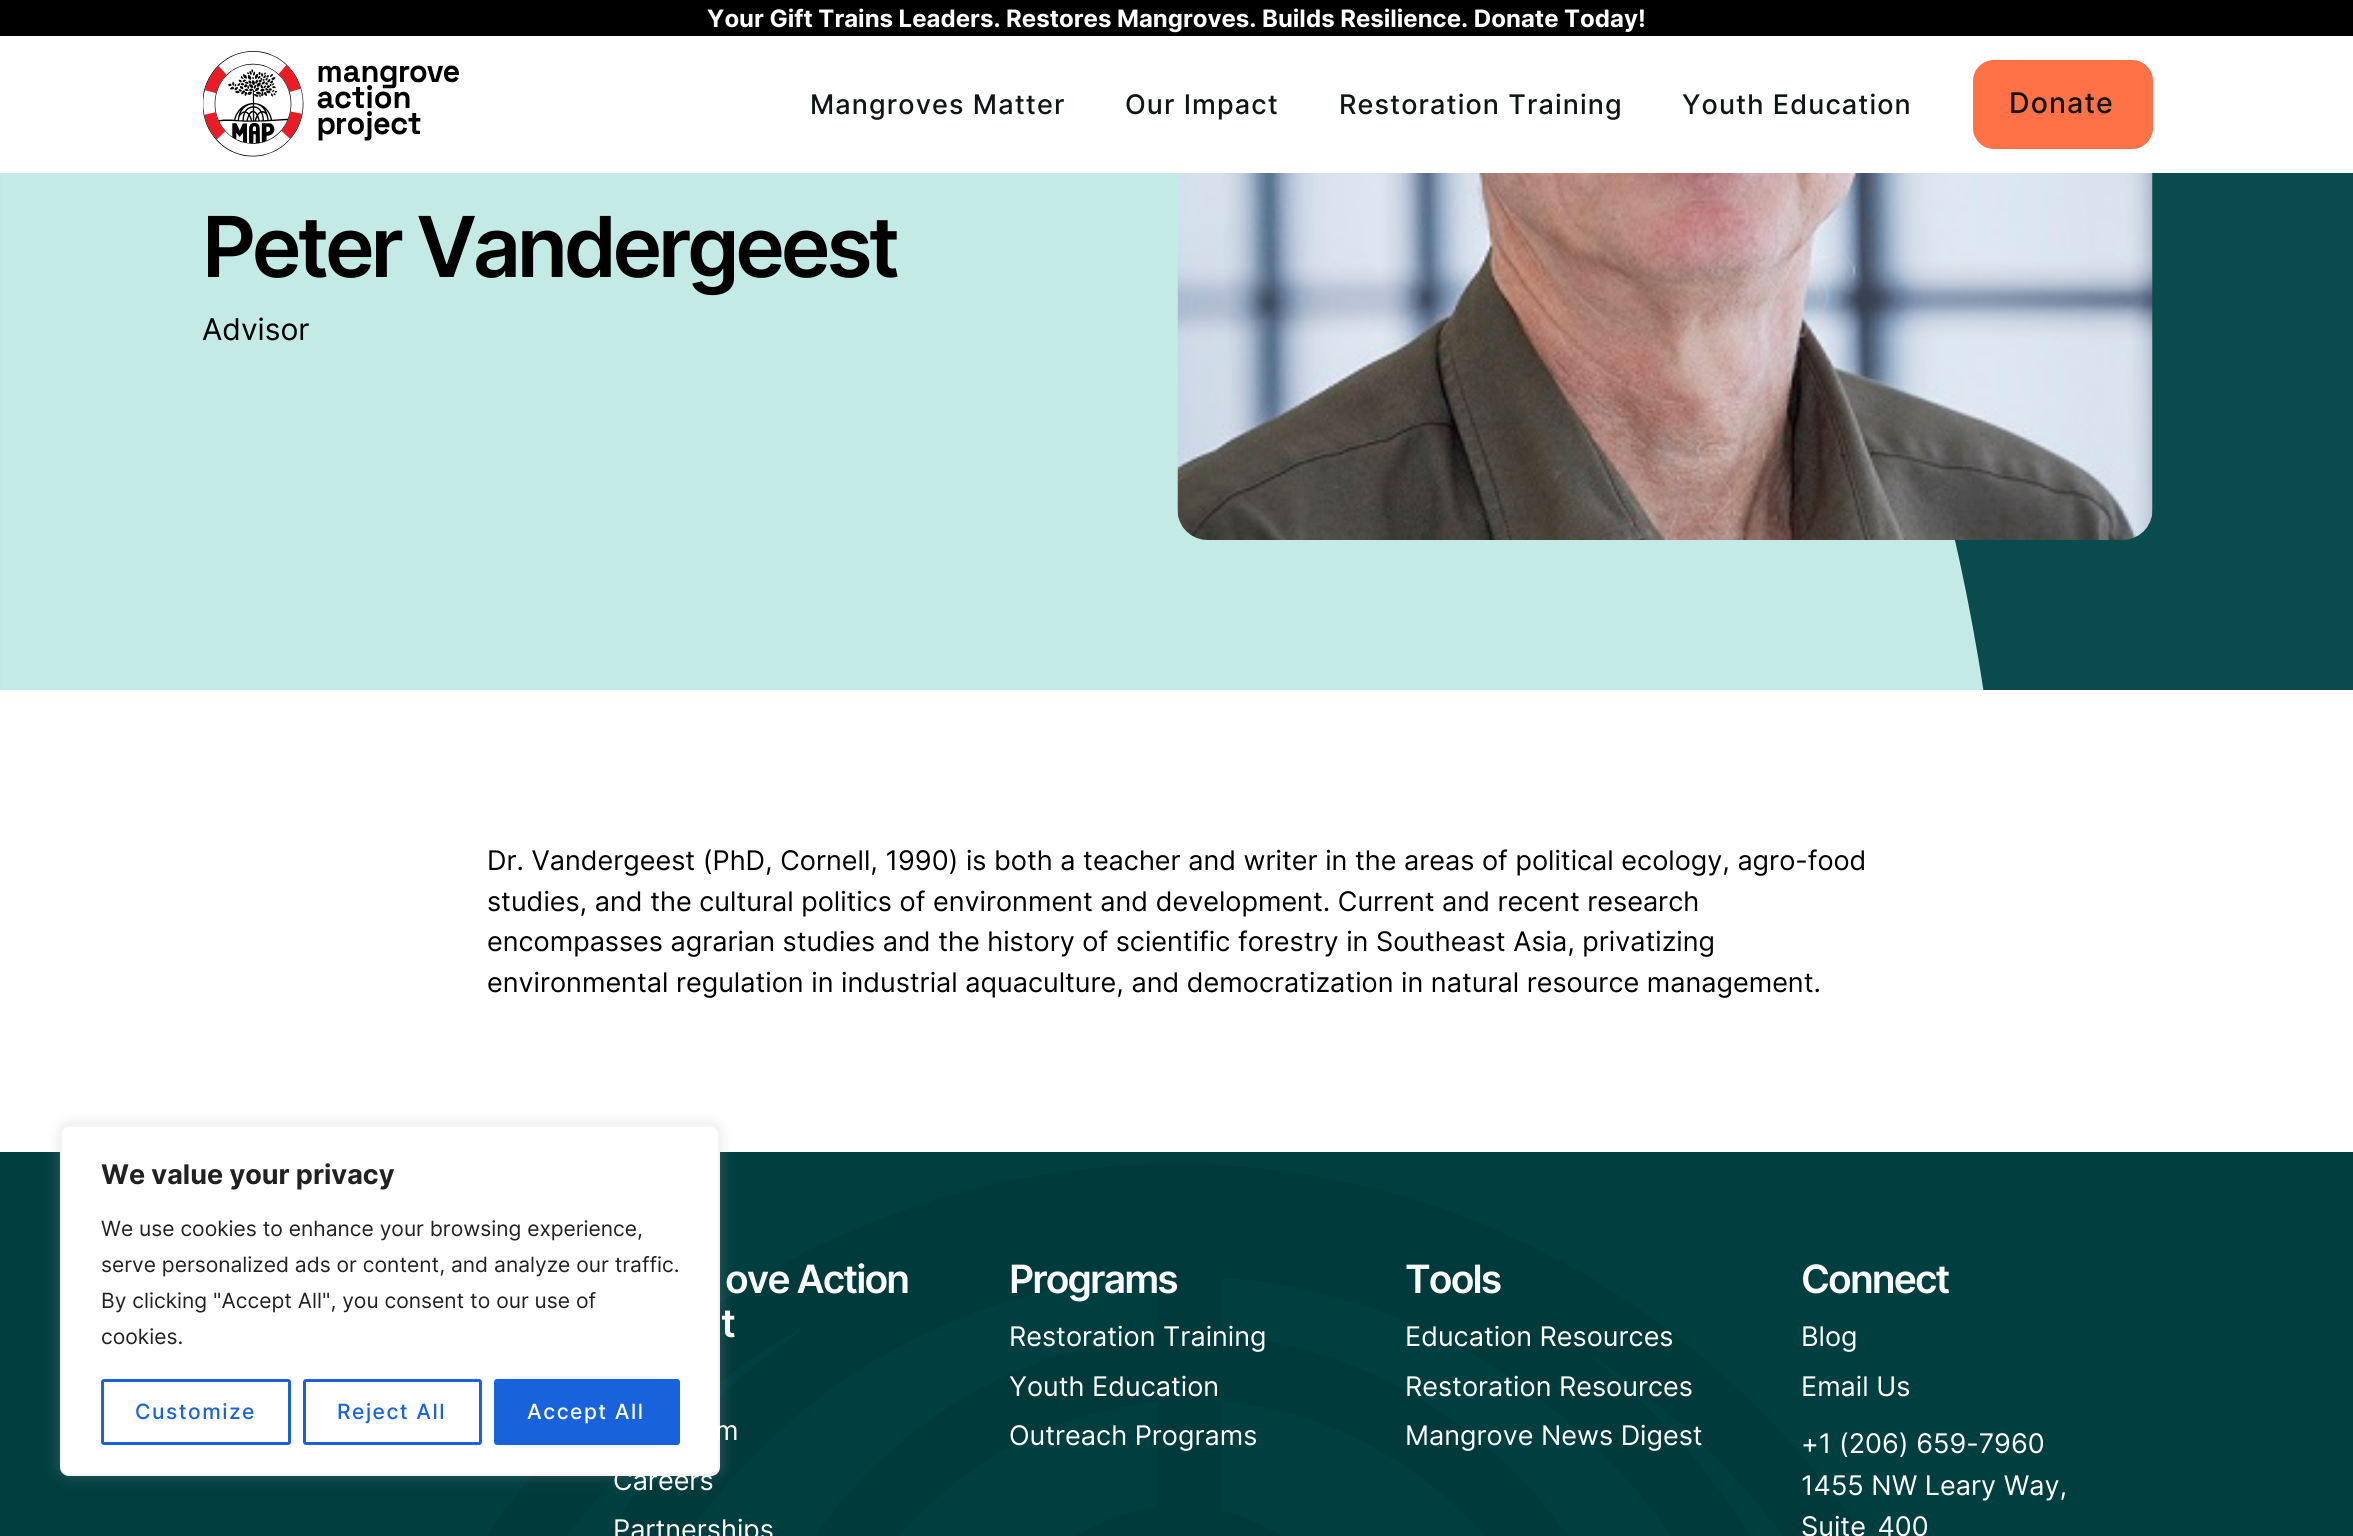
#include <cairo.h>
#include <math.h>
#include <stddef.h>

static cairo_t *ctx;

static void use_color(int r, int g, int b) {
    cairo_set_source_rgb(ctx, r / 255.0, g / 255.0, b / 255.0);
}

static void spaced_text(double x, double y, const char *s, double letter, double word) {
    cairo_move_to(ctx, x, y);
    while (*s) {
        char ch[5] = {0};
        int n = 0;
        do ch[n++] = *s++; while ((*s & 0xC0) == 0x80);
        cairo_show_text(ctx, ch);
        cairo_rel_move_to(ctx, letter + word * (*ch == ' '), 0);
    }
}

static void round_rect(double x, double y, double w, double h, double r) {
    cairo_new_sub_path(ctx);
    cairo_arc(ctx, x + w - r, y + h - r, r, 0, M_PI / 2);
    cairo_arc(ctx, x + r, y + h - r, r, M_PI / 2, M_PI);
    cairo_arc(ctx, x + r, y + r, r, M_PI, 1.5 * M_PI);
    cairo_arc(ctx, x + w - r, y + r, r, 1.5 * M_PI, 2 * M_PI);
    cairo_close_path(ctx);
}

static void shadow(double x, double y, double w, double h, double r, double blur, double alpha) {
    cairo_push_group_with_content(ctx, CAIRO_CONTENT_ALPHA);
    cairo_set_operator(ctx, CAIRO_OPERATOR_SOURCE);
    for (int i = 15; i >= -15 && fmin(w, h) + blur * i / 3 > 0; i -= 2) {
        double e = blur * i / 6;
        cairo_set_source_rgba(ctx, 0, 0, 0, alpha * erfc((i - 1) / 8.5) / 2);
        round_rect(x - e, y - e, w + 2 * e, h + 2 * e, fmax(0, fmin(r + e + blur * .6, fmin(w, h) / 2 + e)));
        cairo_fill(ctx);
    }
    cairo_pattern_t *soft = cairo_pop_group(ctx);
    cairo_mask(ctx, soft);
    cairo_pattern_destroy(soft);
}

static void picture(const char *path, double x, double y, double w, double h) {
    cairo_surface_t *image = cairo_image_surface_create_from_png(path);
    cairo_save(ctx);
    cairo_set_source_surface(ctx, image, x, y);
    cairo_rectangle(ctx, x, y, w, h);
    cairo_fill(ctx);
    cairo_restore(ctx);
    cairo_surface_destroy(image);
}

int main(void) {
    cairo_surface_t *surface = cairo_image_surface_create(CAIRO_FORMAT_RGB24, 2353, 1536);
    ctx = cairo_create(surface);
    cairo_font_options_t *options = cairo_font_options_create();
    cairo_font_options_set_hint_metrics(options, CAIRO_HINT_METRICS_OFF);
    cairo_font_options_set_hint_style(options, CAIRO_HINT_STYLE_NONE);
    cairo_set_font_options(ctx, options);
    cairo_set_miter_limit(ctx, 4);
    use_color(255, 255, 255);
    cairo_paint(ctx);
    use_color(0, 0, 0);
    cairo_rectangle(ctx, 0, 0, 2353, 36);
    cairo_fill(ctx);
    cairo_select_font_face(ctx, "Inter", CAIRO_FONT_SLANT_NORMAL, CAIRO_FONT_WEIGHT_BOLD);
    cairo_set_font_size(ctx, 24);
    use_color(255, 255, 255);
    cairo_move_to(ctx, 707, 27);
    cairo_show_text(ctx, "Your Gift Trains Leaders. Restores Mangroves. Builds Resilience. Donate Today!");
    picture("img1.png", 203, 51, 256, 106);
    cairo_select_font_face(ctx, "Inter Medium", CAIRO_FONT_SLANT_NORMAL, CAIRO_FONT_WEIGHT_NORMAL);
    cairo_set_font_size(ctx, 27);
    use_color(16, 21, 21);
    spaced_text(810, 114, "Mangroves Matter", 1.1, 0);
    spaced_text(1125, 114, "Our Impact", 1.1, 0);
    spaced_text(1339, 114, "Restoration Training", 1.1, 0);
    spaced_text(1682, 114, "Youth Education", 1.1, 0);
    use_color(255, 114, 71);
    round_rect(1973, 60, 180, 89, 21);
    cairo_fill(ctx);
    cairo_set_font_size(ctx, 28.5);
    use_color(16, 21, 21);
    spaced_text(2009, 113, "Donate", 1.1, 0);
    use_color(10, 76, 77);
    cairo_rectangle(ctx, 0, 173, 2353, 517);
    cairo_fill(ctx);
    picture("img2.png", 0, 173, 1984, 517);
    cairo_select_font_face(ctx, "Inter SemiBold", CAIRO_FONT_SLANT_NORMAL, CAIRO_FONT_WEIGHT_NORMAL);
    cairo_set_font_size(ctx, 84);
    use_color(0, 0, 0);
    spaced_text(202, 277, "Peter Vandergeest", -4.25, 0);
    cairo_select_font_face(ctx, "Inter", CAIRO_FONT_SLANT_NORMAL, CAIRO_FONT_WEIGHT_NORMAL);
    cairo_set_font_size(ctx, 30);
    cairo_move_to(ctx, 202, 340);
    cairo_show_text(ctx, "Advisor");
    picture("img3.png", 1177, 173, 976, 367);
    cairo_set_font_size(ctx, 27);
    cairo_move_to(ctx, 487, 870);
    cairo_show_text(ctx, "Dr. Vandergeest (PhD, Cornell, 1990) is both a teacher and writer in the areas of political ecology, agro-food");
    cairo_move_to(ctx, 487, 911);
    cairo_show_text(ctx, "studies, and the cultural politics of environment and development. Current and recent research");
    cairo_move_to(ctx, 487, 951);
    cairo_show_text(ctx, "encompasses agrarian studies and the history of scientific forestry in Southeast Asia, privatizing");
    cairo_move_to(ctx, 487, 992);
    cairo_show_text(ctx, "environmental regulation in industrial aquaculture, and democratization in natural resource management.");
    use_color(0, 63, 64);
    cairo_rectangle(ctx, 0, 1152, 2353, 384);
    cairo_fill(ctx);
    picture("img4.png", 488, 1164, 1374, 372);
    use_color(172, 171, 171);
    shadow(60, 1124, 660, 351, 9, 7.5, 0.3);
    use_color(255, 255, 255);
    round_rect(61, 1126, 658, 349, 8);
    cairo_fill_preserve(ctx);
    use_color(244, 244, 244);
    cairo_stroke(ctx);
    cairo_select_font_face(ctx, "Inter", CAIRO_FONT_SLANT_NORMAL, CAIRO_FONT_WEIGHT_BOLD);
    use_color(33, 33, 33);
    cairo_move_to(ctx, 101, 1184);
    cairo_show_text(ctx, "We value your privacy");
    cairo_select_font_face(ctx, "Inter", CAIRO_FONT_SLANT_NORMAL, CAIRO_FONT_WEIGHT_NORMAL);
    cairo_set_font_size(ctx, 21);
    cairo_move_to(ctx, 101, 1236);
    cairo_show_text(ctx, "We use cookies to enhance your browsing experience,");
    cairo_move_to(ctx, 101, 1272);
    cairo_show_text(ctx, "serve personalized ads or content, and analyze our traffic.");
    cairo_move_to(ctx, 101, 1308);
    cairo_show_text(ctx, "By clicking \"Accept All\", you consent to our use of");
    cairo_move_to(ctx, 101, 1344);
    cairo_show_text(ctx, "cookies.");
    round_rect(102.5, 1380.5, 187, 63, 1.5);
    use_color(24, 99, 220);
    cairo_set_line_width(ctx, 3);
    cairo_stroke(ctx);
    cairo_select_font_face(ctx, "Inter Medium", CAIRO_FONT_SLANT_NORMAL, CAIRO_FONT_WEIGHT_NORMAL);
    spaced_text(135, 1419, "Customize", 1.5, 0);
    round_rect(304.5, 1380.5, 176, 63, 1.5);
    cairo_stroke(ctx);
    spaced_text(337, 1419, "Reject All", 1.5, 0);
    round_rect(495.5, 1380.5, 183, 63, 1.5);
    cairo_fill_preserve(ctx);
    cairo_stroke(ctx);
    use_color(255, 255, 255);
    spaced_text(527, 1419, "Accept All", 1.5, 0);
    cairo_select_font_face(ctx, "Inter SemiBold", CAIRO_FONT_SLANT_NORMAL, CAIRO_FONT_WEIGHT_NORMAL);
    cairo_set_font_size(ctx, 39);
    spaced_text(725, 1293, "ove Action", -1.9, 0);
    spaced_text(721, 1337, "t", -1.9, 0);
    cairo_select_font_face(ctx, "Inter", CAIRO_FONT_SLANT_NORMAL, CAIRO_FONT_WEIGHT_NORMAL);
    cairo_set_font_size(ctx, 27);
    cairo_move_to(ctx, 715, 1440);
    cairo_show_text(ctx, "m");
    cairo_move_to(ctx, 613, 1490);
    cairo_show_text(ctx, "Careers");
    cairo_move_to(ctx, 613, 1539);
    cairo_show_text(ctx, "Partnerships");
    cairo_select_font_face(ctx, "Inter SemiBold", CAIRO_FONT_SLANT_NORMAL, CAIRO_FONT_WEIGHT_NORMAL);
    cairo_set_font_size(ctx, 39);
    spaced_text(1009, 1293, "Programs", -1.9, 0);
    cairo_select_font_face(ctx, "Inter", CAIRO_FONT_SLANT_NORMAL, CAIRO_FONT_WEIGHT_NORMAL);
    cairo_set_font_size(ctx, 27);
    cairo_move_to(ctx, 1009, 1346);
    cairo_show_text(ctx, "Restoration Training");
    cairo_move_to(ctx, 1009, 1396);
    cairo_show_text(ctx, "Youth Education");
    cairo_move_to(ctx, 1009, 1445);
    cairo_show_text(ctx, "Outreach Programs");
    cairo_select_font_face(ctx, "Inter SemiBold", CAIRO_FONT_SLANT_NORMAL, CAIRO_FONT_WEIGHT_NORMAL);
    cairo_set_font_size(ctx, 39);
    spaced_text(1405, 1293, "Tools", -1.9, 0);
    cairo_select_font_face(ctx, "Inter", CAIRO_FONT_SLANT_NORMAL, CAIRO_FONT_WEIGHT_NORMAL);
    cairo_set_font_size(ctx, 27);
    cairo_move_to(ctx, 1405, 1346);
    cairo_show_text(ctx, "Education Resources");
    cairo_move_to(ctx, 1405, 1396);
    cairo_show_text(ctx, "Restoration Resources");
    cairo_move_to(ctx, 1405, 1445);
    cairo_show_text(ctx, "Mangrove News Digest");
    cairo_select_font_face(ctx, "Inter SemiBold", CAIRO_FONT_SLANT_NORMAL, CAIRO_FONT_WEIGHT_NORMAL);
    cairo_set_font_size(ctx, 39);
    spaced_text(1801, 1293, "Connect", -1.9, 0);
    cairo_select_font_face(ctx, "Inter", CAIRO_FONT_SLANT_NORMAL, CAIRO_FONT_WEIGHT_NORMAL);
    cairo_set_font_size(ctx, 27);
    cairo_move_to(ctx, 1801, 1346);
    cairo_show_text(ctx, "Blog");
    cairo_move_to(ctx, 1801, 1396);
    cairo_show_text(ctx, "Email Us");
    cairo_move_to(ctx, 1801, 1453);
    cairo_show_text(ctx, "+1 (206) 659-7960");
    cairo_move_to(ctx, 1801, 1495);
    cairo_show_text(ctx, "1455 NW Leary Way,");
    spaced_text(1801, 1536, "Suite 400", 0, 4);
    cairo_surface_write_to_png(surface, "result.png");
    cairo_font_options_destroy(options);
    cairo_destroy(ctx);
    cairo_surface_destroy(surface);
    return 0;
}
